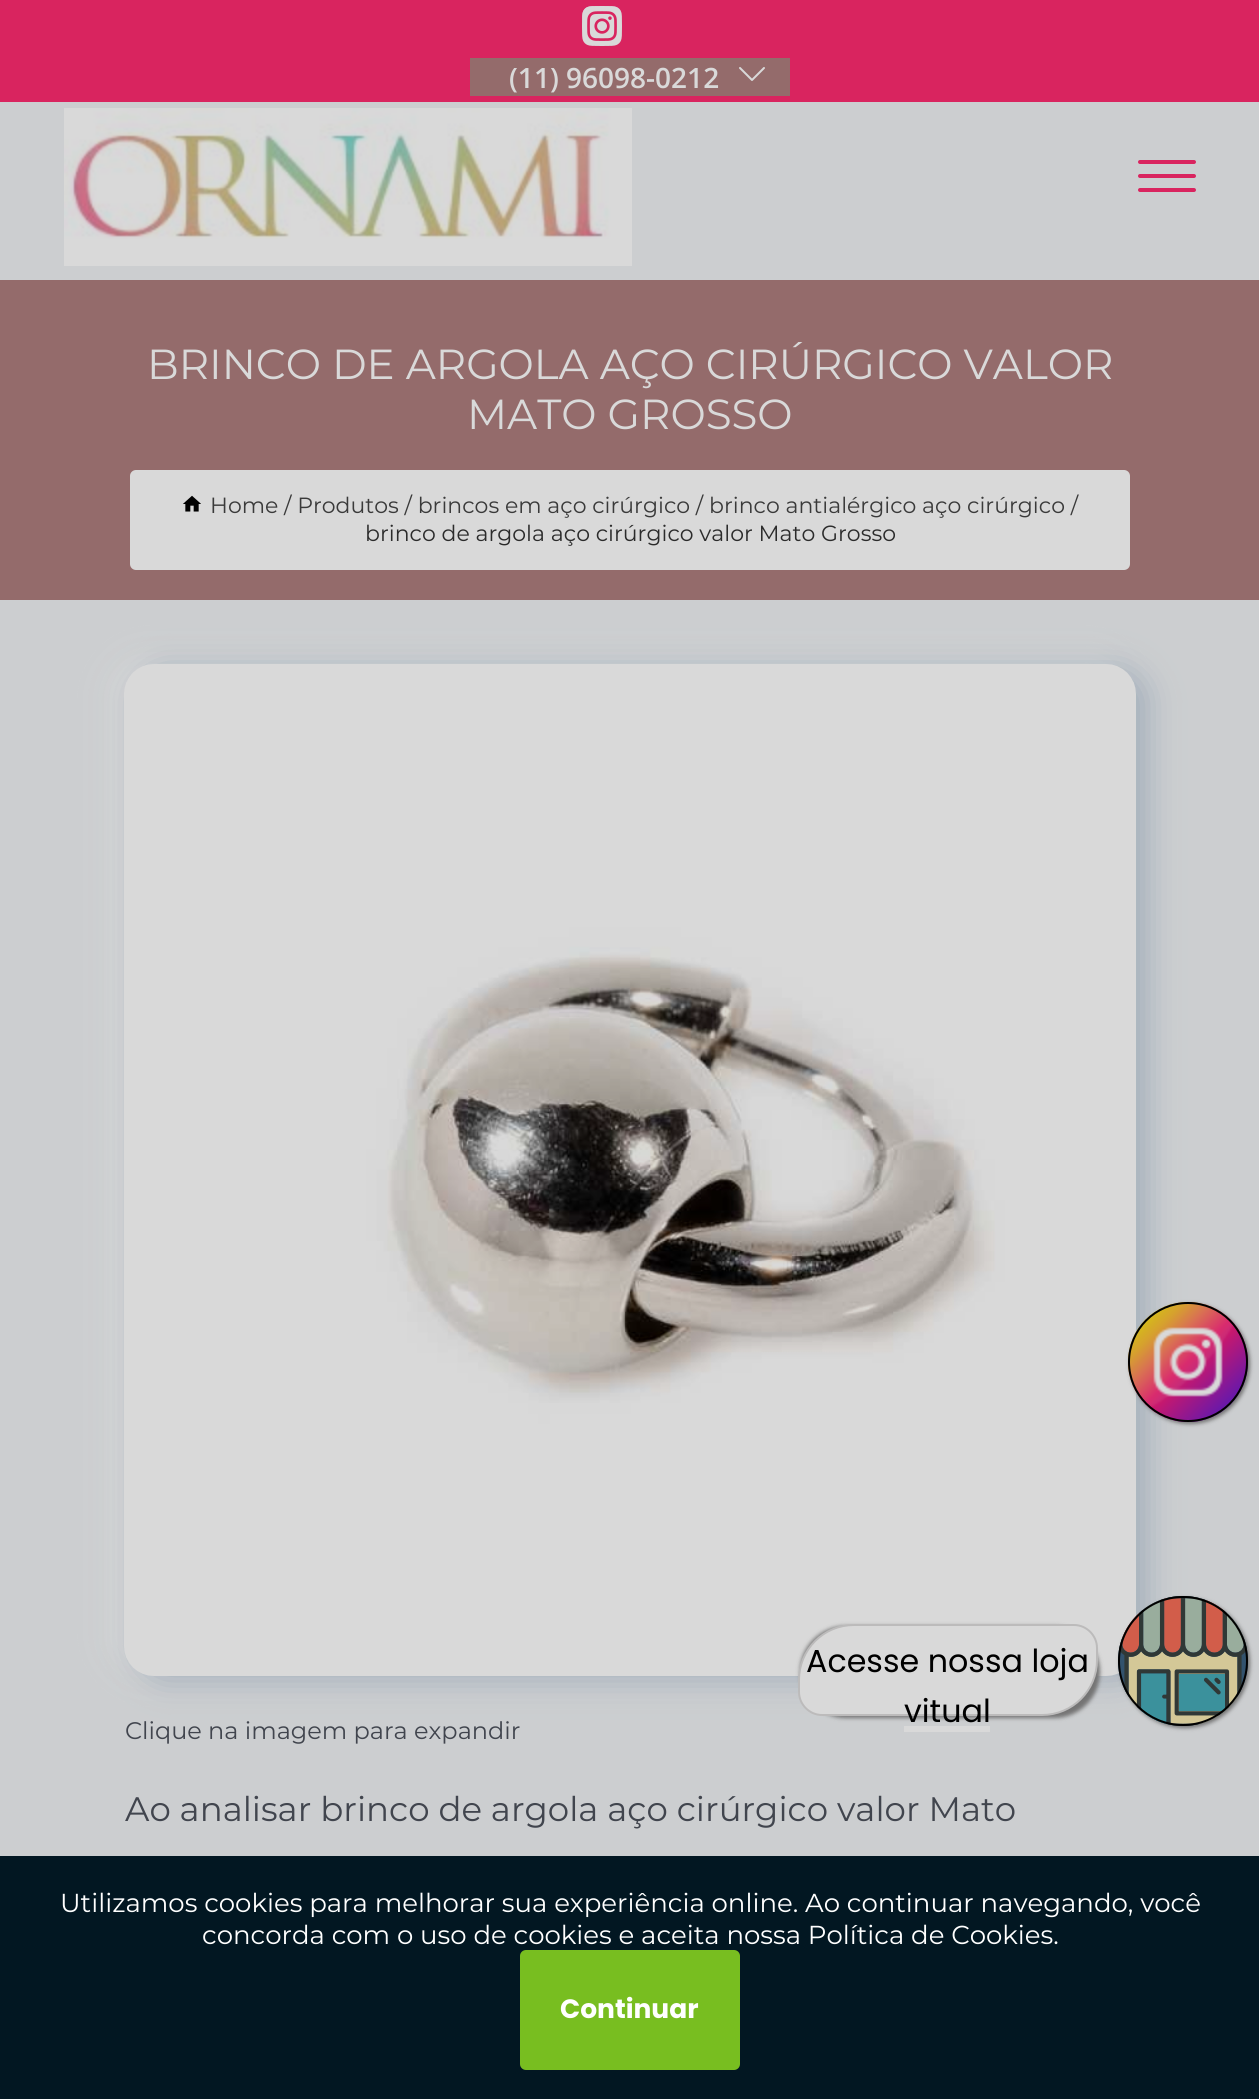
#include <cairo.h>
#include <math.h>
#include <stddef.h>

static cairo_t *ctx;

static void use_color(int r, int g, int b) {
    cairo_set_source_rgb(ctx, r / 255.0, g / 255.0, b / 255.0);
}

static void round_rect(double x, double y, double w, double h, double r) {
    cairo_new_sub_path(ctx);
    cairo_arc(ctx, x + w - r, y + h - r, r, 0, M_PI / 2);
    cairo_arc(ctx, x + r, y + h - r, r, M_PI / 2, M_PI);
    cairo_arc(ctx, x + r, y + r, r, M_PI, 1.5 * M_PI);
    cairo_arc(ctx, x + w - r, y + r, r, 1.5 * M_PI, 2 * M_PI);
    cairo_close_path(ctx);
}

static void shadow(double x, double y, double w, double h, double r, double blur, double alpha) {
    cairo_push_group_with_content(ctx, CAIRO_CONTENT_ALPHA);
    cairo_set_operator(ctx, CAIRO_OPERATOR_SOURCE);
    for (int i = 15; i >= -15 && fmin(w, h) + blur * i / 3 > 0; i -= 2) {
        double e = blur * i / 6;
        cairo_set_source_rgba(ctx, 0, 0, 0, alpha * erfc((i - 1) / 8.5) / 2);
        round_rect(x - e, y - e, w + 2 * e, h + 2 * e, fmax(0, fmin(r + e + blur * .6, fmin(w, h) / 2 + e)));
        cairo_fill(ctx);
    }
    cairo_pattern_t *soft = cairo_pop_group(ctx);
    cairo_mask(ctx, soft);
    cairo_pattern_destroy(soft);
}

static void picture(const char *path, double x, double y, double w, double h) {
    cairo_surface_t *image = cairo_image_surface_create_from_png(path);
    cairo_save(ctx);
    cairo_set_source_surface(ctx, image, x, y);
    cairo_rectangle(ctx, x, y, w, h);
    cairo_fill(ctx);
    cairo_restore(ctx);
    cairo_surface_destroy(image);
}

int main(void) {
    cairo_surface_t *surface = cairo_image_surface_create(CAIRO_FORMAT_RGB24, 1259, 2099);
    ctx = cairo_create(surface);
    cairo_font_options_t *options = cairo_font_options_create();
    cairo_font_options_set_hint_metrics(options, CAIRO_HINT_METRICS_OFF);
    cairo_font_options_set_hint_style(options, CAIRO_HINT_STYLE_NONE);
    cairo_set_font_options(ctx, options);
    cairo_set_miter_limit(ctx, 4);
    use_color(204, 206, 208);
    cairo_paint(ctx);
    use_color(217, 36, 95);
    cairo_rectangle(ctx, 0, 0, 1259, 102);
    cairo_fill(ctx);
    picture("img1.png", 582, 6, 40, 40);
    use_color(148, 107, 107);
    cairo_rectangle(ctx, 470, 58, 320, 38);
    cairo_fill(ctx);
    cairo_select_font_face(ctx, "Open Sans SemiBold", CAIRO_FONT_SLANT_NORMAL, CAIRO_FONT_WEIGHT_NORMAL);
    cairo_set_font_size(ctx, 28);
    use_color(217, 217, 217);
    cairo_move_to(ctx, 509, 88);
    cairo_show_text(ctx, "(11) 96098-0212");
    picture("img2.png", 739, 67, 26, 14);
    picture("img3.png", 64, 108, 568, 158);
    use_color(217, 36, 95);
    round_rect(1138, 160, 58, 4, 2);
    cairo_fill(ctx);
    round_rect(1138, 174, 58, 4, 2);
    cairo_fill(ctx);
    round_rect(1138, 188, 58, 4, 2);
    cairo_fill(ctx);
    use_color(148, 107, 107);
    cairo_rectangle(ctx, 0, 280, 1259, 320);
    cairo_fill(ctx);
    cairo_select_font_face(ctx, "Montserrat", CAIRO_FONT_SLANT_NORMAL, CAIRO_FONT_WEIGHT_NORMAL);
    cairo_set_font_size(ctx, 42);
    use_color(217, 217, 217);
    cairo_move_to(ctx, 147, 379);
    cairo_show_text(ctx, "BRINCO DE ARGOLA AÇO CIRÚRGICO VALOR");
    cairo_move_to(ctx, 467, 429);
    cairo_show_text(ctx, "MATO GROSSO");
    round_rect(130, 470, 1000, 100, 6);
    cairo_fill(ctx);
    picture("img4.png", 183, 495, 18, 17);
    cairo_set_font_size(ctx, 22);
    use_color(58, 58, 58);
    cairo_move_to(ctx, 210, 513);
    cairo_show_text(ctx, "Home / Produtos / brincos em aço cirúrgico / brinco antialérgico aço cirúrgico /");
    use_color(43, 43, 43);
    cairo_move_to(ctx, 365, 541);
    cairo_show_text(ctx, "brinco de argola aço cirúrgico valor Mato Grosso");
    use_color(217, 217, 217);
    shadow(112, 660, 1012, 1012, 30, 16, 0.8);
    use_color(116, 140, 162);
    shadow(136, 668, 1012, 1012, 30, 16, 0.48);
    picture("img5.png", 124, 664, 1012, 1012);
    cairo_set_font_size(ctx, 24);
    use_color(65, 69, 78);
    cairo_move_to(ctx, 125, 1739);
    cairo_show_text(ctx, "Clique na imagem para expandir");
    cairo_set_font_size(ctx, 34);
    cairo_move_to(ctx, 125, 1821);
    cairo_show_text(ctx, "Ao analisar brinco de argola aço cirúrgico valor Mato");
    use_color(116, 116, 116);
    shadow(1130, 1304, 120, 120, 60, 2, 1);
    picture("img6.png", 1128, 1302, 120, 120);
    cairo_arc(ctx, 1188, 1362, 59, 0, 2 * M_PI);
    use_color(0, 0, 0);
    cairo_stroke(ctx);
    use_color(116, 116, 116);
    shadow(1120, 1598, 130, 130, 65, 2, 1);
    use_color(50, 82, 109);
    cairo_arc(ctx, 1183, 1661, 65, 0, 2 * M_PI);
    cairo_fill(ctx);
    picture("img7.png", 1119, 1596, 128, 130);
    cairo_arc(ctx, 1183, 1661, 64, 0, 2 * M_PI);
    use_color(0, 0, 0);
    cairo_stroke(ctx);
    use_color(116, 116, 116);
    shadow(800, 1626, 300, 92, 56, 2, 1);
    use_color(217, 217, 217);
    cairo_new_path(ctx);
    cairo_move_to(ctx, 854, 1625);
    cairo_line_to(ctx, 1074, 1625);
    cairo_curve_to(ctx, 1086.5, 1625, 1097, 1635.5, 1097, 1648);
    cairo_line_to(ctx, 1097, 1660);
    cairo_curve_to(ctx, 1097, 1690.5, 1072.5, 1715, 1042, 1715);
    cairo_line_to(ctx, 822, 1715);
    cairo_curve_to(ctx, 809.5, 1715, 799, 1704.5, 799, 1692);
    cairo_line_to(ctx, 799, 1680);
    cairo_curve_to(ctx, 799, 1649.5, 823.5, 1625, 854, 1625);
    cairo_close_path(ctx);
    cairo_fill_preserve(ctx);
    use_color(188, 187, 187);
    cairo_stroke(ctx);
    cairo_select_font_face(ctx, "Poppins", CAIRO_FONT_SLANT_NORMAL, CAIRO_FONT_WEIGHT_NORMAL);
    cairo_set_font_size(ctx, 31.75);
    use_color(0, 0, 0);
    cairo_move_to(ctx, 806, 1672);
    cairo_show_text(ctx, "Acesse nossa loja");
    cairo_move_to(ctx, 904, 1722);
    cairo_show_text(ctx, "vitual");
    use_color(217, 217, 217);
    cairo_rectangle(ctx, 904, 1726, 86, 6);
    cairo_fill(ctx);
    use_color(2, 23, 34);
    cairo_rectangle(ctx, 0, 1856, 1259, 243);
    cairo_fill(ctx);
    cairo_select_font_face(ctx, "Montserrat", CAIRO_FONT_SLANT_NORMAL, CAIRO_FONT_WEIGHT_NORMAL);
    cairo_set_font_size(ctx, 26);
    use_color(255, 255, 255);
    cairo_move_to(ctx, 60, 1912);
    cairo_show_text(ctx, "Utilizamos cookies para melhorar sua experiência online. Ao continuar navegando, você");
    cairo_move_to(ctx, 202, 1944);
    cairo_show_text(ctx, "concorda com o uso de cookies e aceita nossa Política de Cookies.");
    use_color(120, 190, 32);
    round_rect(520, 1950, 220, 120, 6);
    cairo_fill(ctx);
    cairo_select_font_face(ctx, "Poppins", CAIRO_FONT_SLANT_NORMAL, CAIRO_FONT_WEIGHT_BOLD);
    cairo_set_font_size(ctx, 26.5);
    use_color(255, 255, 255);
    cairo_move_to(ctx, 560, 2018);
    cairo_show_text(ctx, "Continuar");
    cairo_surface_write_to_png(surface, "result.png");
    cairo_font_options_destroy(options);
    cairo_destroy(ctx);
    cairo_surface_destroy(surface);
    return 0;
}
